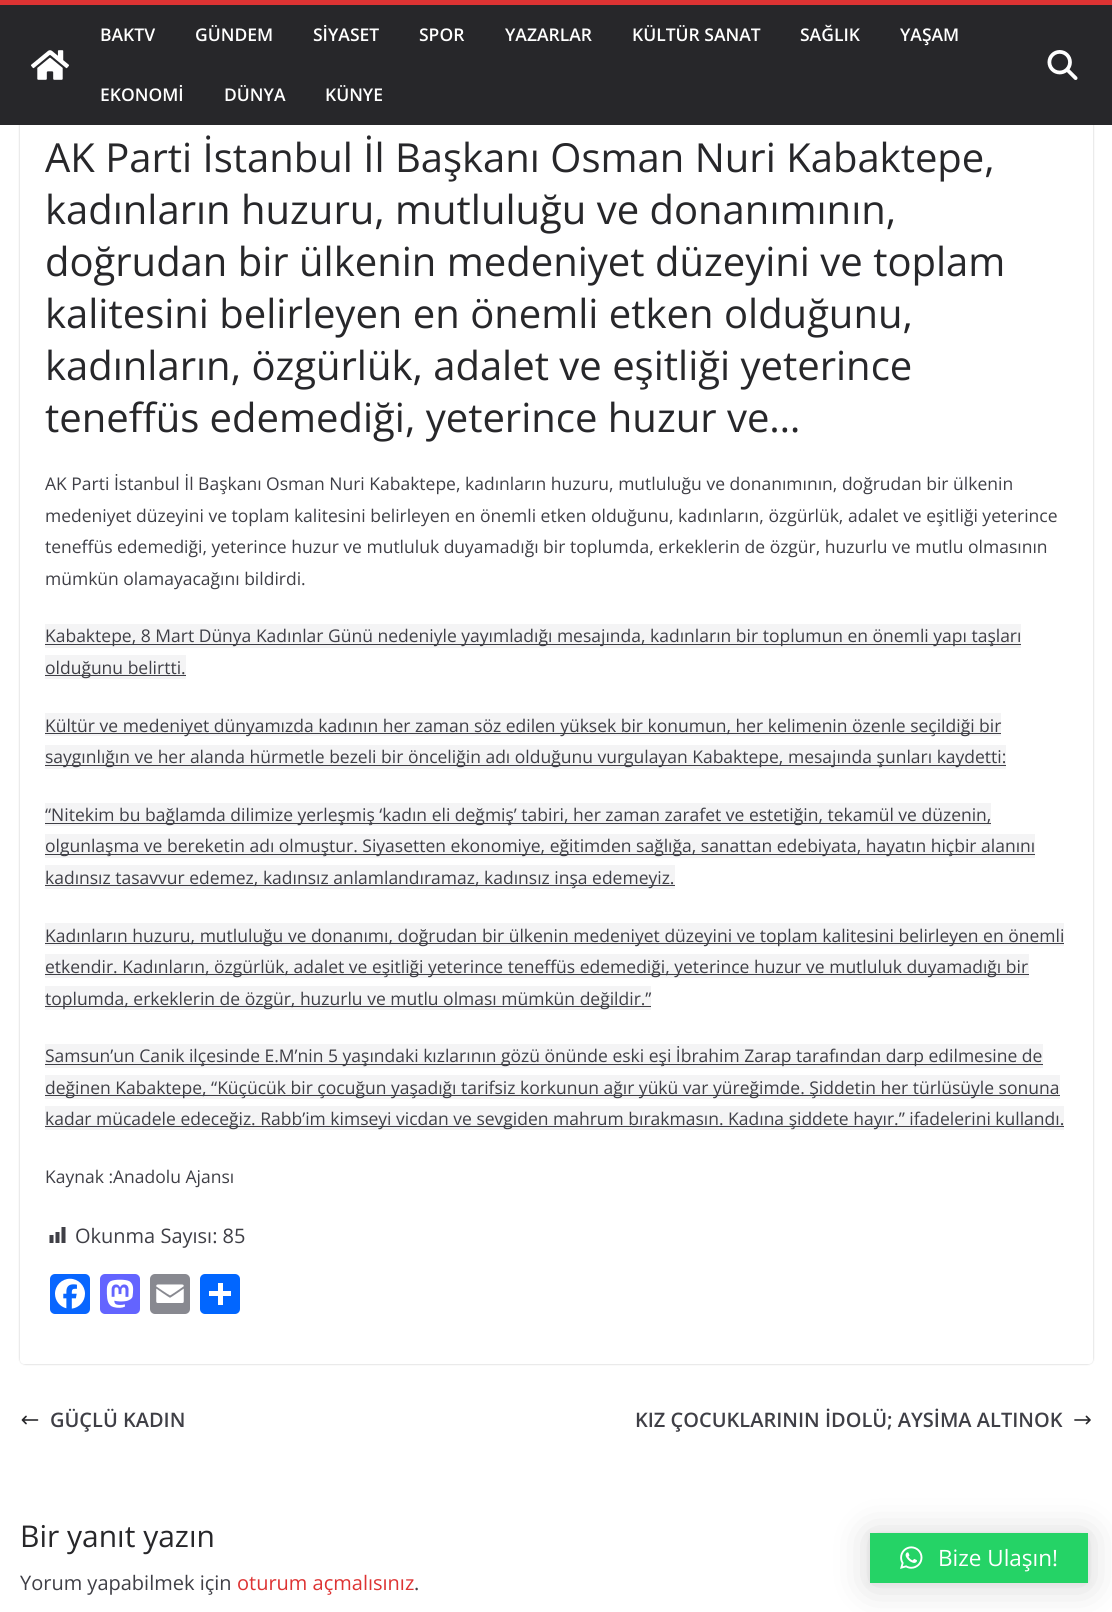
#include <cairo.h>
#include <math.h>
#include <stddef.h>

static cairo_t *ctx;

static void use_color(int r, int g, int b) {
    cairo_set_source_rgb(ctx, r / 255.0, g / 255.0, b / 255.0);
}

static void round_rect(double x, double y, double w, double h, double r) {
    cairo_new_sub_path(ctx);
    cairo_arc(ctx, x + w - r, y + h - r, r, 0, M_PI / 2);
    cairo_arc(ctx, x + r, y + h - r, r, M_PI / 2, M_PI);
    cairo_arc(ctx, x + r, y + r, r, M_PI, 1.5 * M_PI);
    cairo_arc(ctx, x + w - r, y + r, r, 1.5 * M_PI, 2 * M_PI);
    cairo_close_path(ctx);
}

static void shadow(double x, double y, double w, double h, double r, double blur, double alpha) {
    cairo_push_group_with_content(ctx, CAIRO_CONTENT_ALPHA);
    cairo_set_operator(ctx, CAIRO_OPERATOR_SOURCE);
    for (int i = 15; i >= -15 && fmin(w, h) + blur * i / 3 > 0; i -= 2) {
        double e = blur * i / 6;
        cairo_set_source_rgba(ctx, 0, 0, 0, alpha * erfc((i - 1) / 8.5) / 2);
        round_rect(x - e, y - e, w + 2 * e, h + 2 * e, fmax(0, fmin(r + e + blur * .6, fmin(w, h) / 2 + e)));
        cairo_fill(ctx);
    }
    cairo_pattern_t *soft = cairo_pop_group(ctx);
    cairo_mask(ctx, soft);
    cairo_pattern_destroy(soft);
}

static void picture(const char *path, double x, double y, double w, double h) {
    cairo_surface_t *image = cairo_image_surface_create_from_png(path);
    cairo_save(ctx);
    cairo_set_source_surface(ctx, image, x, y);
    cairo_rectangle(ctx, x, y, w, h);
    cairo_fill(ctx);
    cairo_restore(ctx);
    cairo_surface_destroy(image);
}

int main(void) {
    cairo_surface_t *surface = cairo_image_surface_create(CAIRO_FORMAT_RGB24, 1112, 1612);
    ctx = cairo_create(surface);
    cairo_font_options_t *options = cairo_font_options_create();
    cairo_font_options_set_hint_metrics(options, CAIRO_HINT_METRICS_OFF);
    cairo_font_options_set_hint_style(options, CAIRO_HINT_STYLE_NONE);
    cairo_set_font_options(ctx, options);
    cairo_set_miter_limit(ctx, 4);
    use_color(255, 255, 255);
    cairo_paint(ctx);
    cairo_save(ctx);
    cairo_set_fill_rule(ctx, CAIRO_FILL_RULE_EVEN_ODD);
    cairo_new_path(ctx);
    cairo_move_to(ctx, 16, 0);
    cairo_line_to(ctx, 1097, 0);
    cairo_line_to(ctx, 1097, 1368);
    cairo_line_to(ctx, 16, 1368);
    cairo_close_path(ctx);
    cairo_move_to(ctx, 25, -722);
    cairo_line_to(ctx, 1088, -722);
    cairo_curve_to(ctx, 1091, -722, 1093, -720, 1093, -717);
    cairo_line_to(ctx, 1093, 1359);
    cairo_curve_to(ctx, 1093, 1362, 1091, 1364, 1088, 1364);
    cairo_line_to(ctx, 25, 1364);
    cairo_curve_to(ctx, 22, 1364, 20, 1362, 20, 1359);
    cairo_line_to(ctx, 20, -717);
    cairo_curve_to(ctx, 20, -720, 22, -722, 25, -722);
    cairo_close_path(ctx);
    cairo_clip(ctx);
    use_color(0, 0, 0);
    shadow(20, -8, 1073, 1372, 5, 1, 0.24);
    cairo_restore(ctx);
    use_color(39, 39, 42);
    cairo_rectangle(ctx, 0, 5, 1112, 120);
    cairo_fill(ctx);
    use_color(221, 51, 51);
    cairo_rectangle(ctx, 0, 0, 1112, 5);
    cairo_fill(ctx);
    picture("img1.png", 31, 50, 38, 30);
    cairo_select_font_face(ctx, "Open Sans SemiBold", CAIRO_FONT_SLANT_NORMAL, CAIRO_FONT_WEIGHT_NORMAL);
    cairo_set_font_size(ctx, 17.5);
    use_color(255, 255, 255);
    cairo_move_to(ctx, 100, 41);
    cairo_show_text(ctx, "BAKTV");
    cairo_move_to(ctx, 195, 41);
    cairo_show_text(ctx, "GÜNDEM");
    cairo_move_to(ctx, 313, 41);
    cairo_show_text(ctx, "SİYASET");
    cairo_move_to(ctx, 419, 41);
    cairo_show_text(ctx, "SPOR");
    cairo_move_to(ctx, 505, 41);
    cairo_show_text(ctx, "YAZARLAR");
    cairo_move_to(ctx, 632, 41);
    cairo_show_text(ctx, "KÜLTÜR SANAT");
    cairo_move_to(ctx, 800, 41);
    cairo_show_text(ctx, "SAĞLIK");
    cairo_move_to(ctx, 900, 41);
    cairo_show_text(ctx, "YAŞAM");
    cairo_move_to(ctx, 100, 101);
    cairo_show_text(ctx, "EKONOMİ");
    cairo_move_to(ctx, 224, 101);
    cairo_show_text(ctx, "DÜNYA");
    cairo_move_to(ctx, 325, 101);
    cairo_show_text(ctx, "KÜNYE");
    picture("img2.png", 1047, 50, 31, 30);
    cairo_select_font_face(ctx, "Open Sans", CAIRO_FONT_SLANT_NORMAL, CAIRO_FONT_WEIGHT_NORMAL);
    cairo_set_font_size(ctx, 40);
    use_color(39, 39, 42);
    cairo_move_to(ctx, 45, 172);
    cairo_show_text(ctx, "AK Parti İstanbul İl Başkanı Osman Nuri Kabaktepe,");
    cairo_move_to(ctx, 45, 224);
    cairo_show_text(ctx, "kadınların huzuru, mutluluğu ve donanımının,");
    cairo_move_to(ctx, 45, 276);
    cairo_show_text(ctx, "doğrudan bir ülkenin medeniyet düzeyini ve toplam");
    cairo_move_to(ctx, 45, 328);
    cairo_show_text(ctx, "kalitesini belirleyen en önemli etken olduğunu,");
    cairo_move_to(ctx, 45, 380);
    cairo_show_text(ctx, "kadınların, özgürlük, adalet ve eşitliği yeterince");
    cairo_move_to(ctx, 45, 432);
    cairo_show_text(ctx, "teneffüs edemediği, yeterince huzur ve…");
    cairo_set_font_size(ctx, 17.5);
    use_color(63, 63, 70);
    cairo_move_to(ctx, 45, 490);
    cairo_show_text(ctx, "AK Parti İstanbul İl Başkanı Osman Nuri Kabaktepe, kadınların huzuru, mutluluğu ve donanımının, doğrudan bir ülkenin");
    cairo_move_to(ctx, 45, 522);
    cairo_show_text(ctx, "medeniyet düzeyini ve toplam kalitesini belirleyen en önemli etken olduğunu, kadınların, özgürlük, adalet ve eşitliği yeterince");
    cairo_move_to(ctx, 45, 553);
    cairo_show_text(ctx, "teneffüs edemediği, yeterince huzur ve mutluluk duyamadığı bir toplumda, erkeklerin de özgür, huzurlu ve mutlu olmasının");
    cairo_move_to(ctx, 45, 585);
    cairo_show_text(ctx, "mümkün olamayacağını bildirdi.");
    use_color(244, 244, 245);
    cairo_rectangle(ctx, 45, 624, 976, 24);
    cairo_fill(ctx);
    use_color(63, 63, 70);
    cairo_rectangle(ctx, 45, 644, 976, 1);
    cairo_fill(ctx);
    cairo_move_to(ctx, 45, 642);
    cairo_show_text(ctx, "Kabaktepe, 8 Mart Dünya Kadınlar Günü nedeniyle yayımladığı mesajında, kadınların bir toplumun en önemli yapı taşları");
    use_color(244, 244, 245);
    cairo_rectangle(ctx, 45, 655, 141, 24);
    cairo_fill(ctx);
    use_color(63, 63, 70);
    cairo_rectangle(ctx, 45, 675, 141, 1);
    cairo_fill(ctx);
    cairo_move_to(ctx, 45, 674);
    cairo_show_text(ctx, "olduğunu belirtti.");
    use_color(244, 244, 245);
    cairo_rectangle(ctx, 45, 713, 956, 23);
    cairo_fill(ctx);
    use_color(63, 63, 70);
    cairo_rectangle(ctx, 45, 733, 956, 1);
    cairo_fill(ctx);
    cairo_move_to(ctx, 45, 732);
    cairo_show_text(ctx, "Kültür ve medeniyet dünyamızda kadının her zaman söz edilen yüksek bir konumun, her kelimenin özenle seçildiği bir");
    use_color(244, 244, 245);
    cairo_rectangle(ctx, 45, 745, 961, 24);
    cairo_fill(ctx);
    use_color(63, 63, 70);
    cairo_rectangle(ctx, 45, 765, 961, 1);
    cairo_fill(ctx);
    cairo_move_to(ctx, 45, 763);
    cairo_show_text(ctx, "saygınlığın ve her alanda hürmetle bezeli bir önceliğin adı olduğunu vurgulayan Kabaktepe, mesajında şunları kaydetti:");
    use_color(244, 244, 245);
    cairo_rectangle(ctx, 45, 803, 946, 23);
    cairo_fill(ctx);
    use_color(63, 63, 70);
    cairo_rectangle(ctx, 45, 823, 946, 1);
    cairo_fill(ctx);
    cairo_move_to(ctx, 45, 821);
    cairo_show_text(ctx, "“Nitekim bu bağlamda dilimize yerleşmiş ‘kadın eli değmiş’ tabiri, her zaman zarafet ve estetiğin, tekamül ve düzenin,");
    use_color(244, 244, 245);
    cairo_rectangle(ctx, 45, 834, 990, 24);
    cairo_fill(ctx);
    use_color(63, 63, 70);
    cairo_rectangle(ctx, 45, 854, 990, 1);
    cairo_fill(ctx);
    cairo_move_to(ctx, 45, 852);
    cairo_show_text(ctx, "olgunlaşma ve bereketin adı olmuştur. Siyasetten ekonomiye, eğitimden sağlığa, sanattan edebiyata, hayatın hiçbir alanını");
    use_color(244, 244, 245);
    cairo_rectangle(ctx, 45, 865, 630, 24);
    cairo_fill(ctx);
    use_color(63, 63, 70);
    cairo_rectangle(ctx, 45, 885, 630, 1);
    cairo_fill(ctx);
    cairo_move_to(ctx, 45, 884);
    cairo_show_text(ctx, "kadınsız tasavvur edemez, kadınsız anlamlandıramaz, kadınsız inşa edemeyiz.");
    use_color(244, 244, 245);
    cairo_rectangle(ctx, 45, 923, 1019, 23);
    cairo_fill(ctx);
    use_color(63, 63, 70);
    cairo_rectangle(ctx, 45, 943, 1019, 1);
    cairo_fill(ctx);
    cairo_move_to(ctx, 45, 942);
    cairo_show_text(ctx, "Kadınların huzuru, mutluluğu ve donanımı, doğrudan bir ülkenin medeniyet düzeyini ve toplam kalitesini belirleyen en önemli");
    use_color(244, 244, 245);
    cairo_rectangle(ctx, 45, 954, 984, 24);
    cairo_fill(ctx);
    use_color(63, 63, 70);
    cairo_rectangle(ctx, 45, 974, 984, 1);
    cairo_fill(ctx);
    cairo_move_to(ctx, 45, 973);
    cairo_show_text(ctx, "etkendir. Kadınların, özgürlük, adalet ve eşitliği yeterince teneffüs edemediği, yeterince huzur ve mutluluk duyamadığı bir");
    use_color(244, 244, 245);
    cairo_rectangle(ctx, 45, 986, 606, 24);
    cairo_fill(ctx);
    use_color(63, 63, 70);
    cairo_rectangle(ctx, 45, 1006, 606, 1);
    cairo_fill(ctx);
    cairo_move_to(ctx, 45, 1005);
    cairo_show_text(ctx, "toplumda, erkeklerin de özgür, huzurlu ve mutlu olması mümkün değildir.”");
    use_color(244, 244, 245);
    cairo_rectangle(ctx, 45, 1044, 998, 24);
    cairo_fill(ctx);
    use_color(63, 63, 70);
    cairo_rectangle(ctx, 45, 1064, 998, 1);
    cairo_fill(ctx);
    cairo_move_to(ctx, 45, 1062);
    cairo_show_text(ctx, "Samsun’un Canik ilçesinde E.M’nin 5 yaşındaki kızlarının gözü önünde eski eşi İbrahim Zarap tarafından darp edilmesine de");
    use_color(244, 244, 245);
    cairo_rectangle(ctx, 45, 1075, 1015, 24);
    cairo_fill(ctx);
    use_color(63, 63, 70);
    cairo_rectangle(ctx, 45, 1095, 1015, 1);
    cairo_fill(ctx);
    cairo_move_to(ctx, 45, 1094);
    cairo_show_text(ctx, "değinen Kabaktepe, “Küçücük bir çocuğun yaşadığı tarifsiz korkunun ağır yükü var yüreğimde. Şiddetin her türlüsüyle sonuna");
    use_color(244, 244, 245);
    cairo_rectangle(ctx, 45, 1106, 1019, 24);
    cairo_fill(ctx);
    use_color(63, 63, 70);
    cairo_rectangle(ctx, 45, 1126, 1019, 1);
    cairo_fill(ctx);
    cairo_move_to(ctx, 45, 1125);
    cairo_show_text(ctx, "kadar mücadele edeceğiz. Rabb’im kimseyi vicdan ve sevgiden mahrum bırakmasın. Kadına şiddete hayır.” ifadelerini kullandı.");
    cairo_move_to(ctx, 45, 1183);
    cairo_show_text(ctx, "Kaynak :Anadolu Ajansı");
    picture("img3.png", 49, 1227, 17, 16);
    cairo_set_font_size(ctx, 20);
    cairo_move_to(ctx, 75, 1243);
    cairo_show_text(ctx, "Okunma Sayısı: 85");
    use_color(8, 102, 255);
    round_rect(50, 1274, 40, 40, 5);
    cairo_fill(ctx);
    picture("img4.png", 55, 1278, 30, 31);
    use_color(99, 100, 255);
    round_rect(100, 1274, 40, 40, 5);
    cairo_fill(ctx);
    picture("img5.png", 106, 1279, 28, 29);
    use_color(136, 137, 144);
    round_rect(150, 1274, 40, 40, 5);
    cairo_fill(ctx);
    picture("img6.png", 156, 1284, 28, 19);
    use_color(1, 102, 255);
    round_rect(200, 1274, 40, 40, 5);
    cairo_fill(ctx);
    use_color(255, 255, 255);
    cairo_rectangle(ctx, 218, 1283, 5, 22);
    cairo_fill(ctx);
    cairo_rectangle(ctx, 209, 1291, 22, 5);
    cairo_fill(ctx);
    picture("img7.png", 21, 1415, 18, 10);
    cairo_select_font_face(ctx, "Open Sans SemiBold", CAIRO_FONT_SLANT_NORMAL, CAIRO_FONT_WEIGHT_NORMAL);
    use_color(63, 63, 70);
    cairo_move_to(ctx, 50, 1427);
    cairo_show_text(ctx, "GÜÇLÜ KADIN");
    cairo_move_to(ctx, 635, 1427);
    cairo_show_text(ctx, "KIZ ÇOCUKLARININ İDOLÜ; AYSİMA ALTINOK");
    picture("img8.png", 1074, 1415, 17, 10);
    cairo_select_font_face(ctx, "Open Sans", CAIRO_FONT_SLANT_NORMAL, CAIRO_FONT_WEIGHT_NORMAL);
    cairo_set_font_size(ctx, 30);
    use_color(39, 39, 42);
    cairo_move_to(ctx, 20, 1547);
    cairo_show_text(ctx, "Bir yanıt yazın");
    cairo_set_font_size(ctx, 20);
    use_color(63, 63, 70);
    cairo_move_to(ctx, 20, 1590);
    cairo_show_text(ctx, "Yorum yapabilmek için");
    use_color(221, 51, 51);
    cairo_move_to(ctx, 237, 1590);
    cairo_show_text(ctx, "oturum açmalısınız");
    use_color(63, 63, 70);
    cairo_move_to(ctx, 414, 1590);
    cairo_show_text(ctx, ".");
    use_color(0, 0, 0);
    shadow(870, 1535, 218, 50, 0, 20, 0.16);
    shadow(870, 1534, 218, 50, 0, 4, 0.06);
    use_color(37, 211, 102);
    cairo_rectangle(ctx, 870, 1533, 218, 50);
    cairo_fill(ctx);
    picture("img9.png", 900, 1546, 23, 23);
    cairo_set_font_size(ctx, 22.5);
    use_color(255, 255, 255);
    cairo_move_to(ctx, 938, 1566);
    cairo_show_text(ctx, "Bize Ulaşın!");
    cairo_surface_write_to_png(surface, "result.png");
    cairo_font_options_destroy(options);
    cairo_destroy(ctx);
    cairo_surface_destroy(surface);
    return 0;
}
